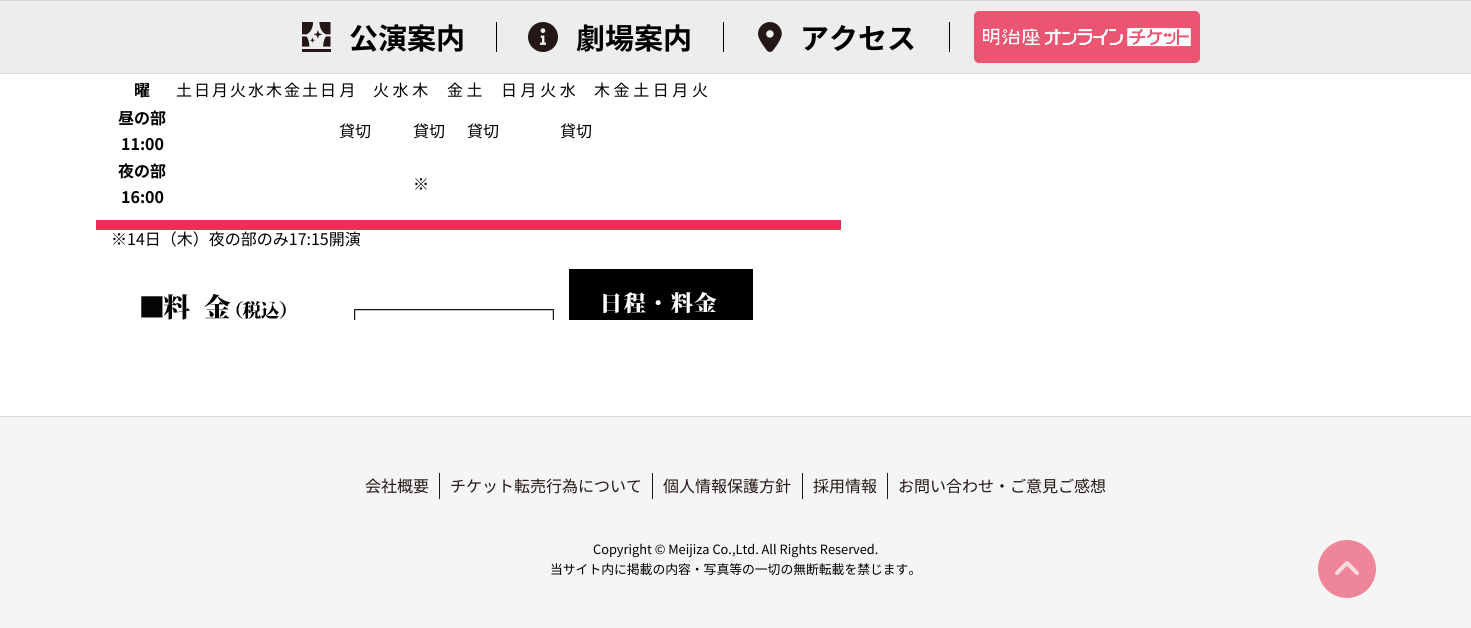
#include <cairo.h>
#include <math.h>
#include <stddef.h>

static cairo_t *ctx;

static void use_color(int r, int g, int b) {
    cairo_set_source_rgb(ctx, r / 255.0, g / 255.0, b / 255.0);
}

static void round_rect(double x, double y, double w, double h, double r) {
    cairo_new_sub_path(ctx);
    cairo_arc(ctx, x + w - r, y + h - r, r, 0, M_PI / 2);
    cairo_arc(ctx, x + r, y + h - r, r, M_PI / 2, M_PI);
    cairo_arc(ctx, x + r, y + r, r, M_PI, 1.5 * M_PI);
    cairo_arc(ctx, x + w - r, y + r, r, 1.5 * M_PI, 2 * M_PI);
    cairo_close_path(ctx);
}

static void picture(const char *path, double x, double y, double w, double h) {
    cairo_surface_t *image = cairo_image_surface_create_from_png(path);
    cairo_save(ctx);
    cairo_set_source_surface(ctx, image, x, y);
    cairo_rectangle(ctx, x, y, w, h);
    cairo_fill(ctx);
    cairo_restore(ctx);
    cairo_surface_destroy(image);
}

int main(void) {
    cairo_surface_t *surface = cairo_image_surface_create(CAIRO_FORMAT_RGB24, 1471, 628);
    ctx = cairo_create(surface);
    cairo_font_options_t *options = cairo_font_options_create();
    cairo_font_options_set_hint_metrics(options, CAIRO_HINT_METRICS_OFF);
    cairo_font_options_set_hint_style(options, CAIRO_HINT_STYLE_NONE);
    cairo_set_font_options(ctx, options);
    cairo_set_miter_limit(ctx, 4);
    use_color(255, 255, 255);
    cairo_paint(ctx);
    use_color(237, 237, 237);
    cairo_rectangle(ctx, 0, 1, 1471, 72);
    cairo_fill(ctx);
    use_color(215, 215, 215);
    cairo_rectangle(ctx, 0, 0, 1471, 1);
    cairo_fill(ctx);
    cairo_rectangle(ctx, 0, 73, 1471, 1);
    cairo_fill(ctx);
    use_color(0, 0, 0);
    cairo_rectangle(ctx, 496, 22, 1, 30);
    cairo_fill(ctx);
    picture("img1.png", 302, 22, 29, 30);
    cairo_select_font_face(ctx, "Noto Sans JP", CAIRO_FONT_SLANT_NORMAL, CAIRO_FONT_WEIGHT_BOLD);
    cairo_set_font_size(ctx, 29);
    cairo_move_to(ctx, 349, 49);
    cairo_show_text(ctx, "公演案内");
    cairo_rectangle(ctx, 723, 22, 1, 30);
    cairo_fill(ctx);
    picture("img2.png", 528, 22, 30, 30);
    cairo_move_to(ctx, 576, 49);
    cairo_show_text(ctx, "劇場案内");
    cairo_rectangle(ctx, 949, 22, 1, 30);
    cairo_fill(ctx);
    picture("img3.png", 758, 22, 24, 30);
    cairo_move_to(ctx, 800, 49);
    cairo_show_text(ctx, "アクセス");
    use_color(236, 85, 113);
    round_rect(974.5, 11.5, 225, 51, 4.5);
    cairo_fill_preserve(ctx);
    cairo_set_line_width(ctx, 1);
    cairo_stroke(ctx);
    picture("img4.png", 983, 27, 208, 20);
    use_color(231, 51, 88);
    cairo_rectangle(ctx, 96, 220, 745, 10);
    cairo_fill(ctx);
    cairo_set_font_size(ctx, 16);
    use_color(0, 0, 0);
    cairo_move_to(ctx, 134, 96);
    cairo_show_text(ctx, "曜");
    cairo_select_font_face(ctx, "Noto Sans JP", CAIRO_FONT_SLANT_NORMAL, CAIRO_FONT_WEIGHT_NORMAL);
    cairo_move_to(ctx, 176, 96);
    cairo_show_text(ctx, "土");
    cairo_move_to(ctx, 194, 96);
    cairo_show_text(ctx, "日");
    cairo_move_to(ctx, 212, 96);
    cairo_show_text(ctx, "月");
    cairo_move_to(ctx, 230, 96);
    cairo_show_text(ctx, "火");
    cairo_move_to(ctx, 248, 96);
    cairo_show_text(ctx, "水");
    cairo_move_to(ctx, 266, 96);
    cairo_show_text(ctx, "木");
    cairo_move_to(ctx, 284, 96);
    cairo_show_text(ctx, "金");
    cairo_move_to(ctx, 302, 96);
    cairo_show_text(ctx, "土");
    cairo_move_to(ctx, 320, 96);
    cairo_show_text(ctx, "日 月");
    cairo_move_to(ctx, 373, 96);
    cairo_show_text(ctx, "火 水 木");
    cairo_move_to(ctx, 447, 96);
    cairo_show_text(ctx, "金 土");
    cairo_move_to(ctx, 501, 96);
    cairo_show_text(ctx, "日 月 火 水");
    cairo_move_to(ctx, 594, 96);
    cairo_show_text(ctx, "木 金 土 日 月 火");
    cairo_select_font_face(ctx, "Noto Sans JP", CAIRO_FONT_SLANT_NORMAL, CAIRO_FONT_WEIGHT_BOLD);
    cairo_move_to(ctx, 118, 124);
    cairo_show_text(ctx, "昼の部");
    cairo_move_to(ctx, 121, 150);
    cairo_show_text(ctx, "11:00");
    cairo_select_font_face(ctx, "Noto Sans JP", CAIRO_FONT_SLANT_NORMAL, CAIRO_FONT_WEIGHT_NORMAL);
    cairo_move_to(ctx, 339, 137);
    cairo_show_text(ctx, "貸切");
    cairo_move_to(ctx, 413, 137);
    cairo_show_text(ctx, "貸切");
    cairo_move_to(ctx, 467, 137);
    cairo_show_text(ctx, "貸切");
    cairo_move_to(ctx, 560, 137);
    cairo_show_text(ctx, "貸切");
    cairo_select_font_face(ctx, "Noto Sans JP", CAIRO_FONT_SLANT_NORMAL, CAIRO_FONT_WEIGHT_BOLD);
    cairo_move_to(ctx, 118, 177);
    cairo_show_text(ctx, "夜の部");
    cairo_move_to(ctx, 121, 203);
    cairo_show_text(ctx, "16:00");
    cairo_select_font_face(ctx, "Noto Sans JP", CAIRO_FONT_SLANT_NORMAL, CAIRO_FONT_WEIGHT_NORMAL);
    cairo_move_to(ctx, 413, 190);
    cairo_show_text(ctx, "※");
    cairo_move_to(ctx, 111, 245);
    cairo_show_text(ctx, "※14日（木）夜の部のみ17:15開演");
    picture("img5.png", 141, 293, 145, 27);
    picture("img6.png", 354, 309, 200, 11);
    picture("img7.png", 569, 269, 184, 51);
    use_color(245, 245, 245);
    cairo_rectangle(ctx, 0, 417, 1471, 211);
    cairo_fill(ctx);
    use_color(215, 215, 215);
    cairo_rectangle(ctx, 0, 416, 1471, 1);
    cairo_fill(ctx);
    use_color(35, 24, 21);
    cairo_move_to(ctx, 365, 492);
    cairo_show_text(ctx, "会社概要");
    cairo_rectangle(ctx, 439, 473, 1, 26);
    cairo_fill(ctx);
    cairo_move_to(ctx, 450, 492);
    cairo_show_text(ctx, "チケット転売行為について");
    cairo_rectangle(ctx, 652, 473, 1, 26);
    cairo_fill(ctx);
    cairo_move_to(ctx, 663, 492);
    cairo_show_text(ctx, "個人情報保護方針");
    cairo_rectangle(ctx, 802, 473, 1, 26);
    cairo_fill(ctx);
    cairo_move_to(ctx, 813, 492);
    cairo_show_text(ctx, "採用情報");
    cairo_rectangle(ctx, 887, 473, 1, 26);
    cairo_fill(ctx);
    cairo_move_to(ctx, 898, 492);
    cairo_show_text(ctx, "お問い合わせ・ご意見ご感想");
    cairo_set_font_size(ctx, 12.8);
    use_color(0, 0, 0);
    cairo_move_to(ctx, 593, 554);
    cairo_show_text(ctx, "Copyright © Meijiza Co.,Ltd. All Rights Reserved.");
    cairo_move_to(ctx, 550, 574);
    cairo_show_text(ctx, "当サイト内に掲載の内容・写真等の一切の無断転載を禁じます。");
    use_color(239, 133, 153);
    cairo_new_path(ctx);
    cairo_arc(ctx, 1347, 569, 29, 0, 2 * M_PI);
    cairo_fill(ctx);
    picture("img8.png", 1335, 561, 24, 14);
    cairo_surface_write_to_png(surface, "result.png");
    cairo_font_options_destroy(options);
    cairo_destroy(ctx);
    cairo_surface_destroy(surface);
    return 0;
}
